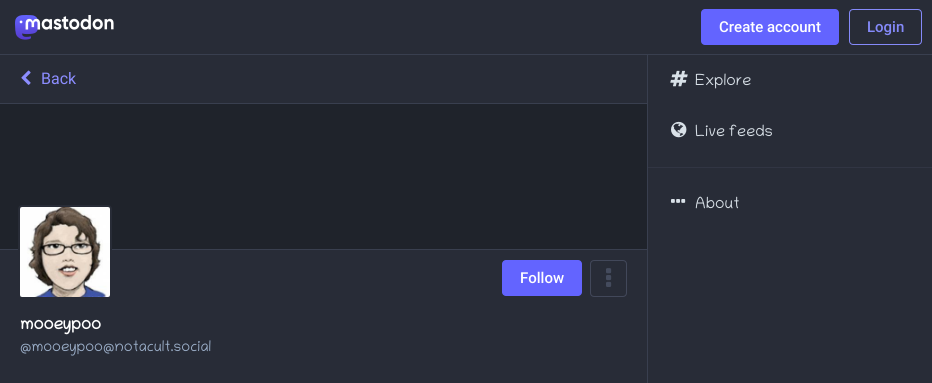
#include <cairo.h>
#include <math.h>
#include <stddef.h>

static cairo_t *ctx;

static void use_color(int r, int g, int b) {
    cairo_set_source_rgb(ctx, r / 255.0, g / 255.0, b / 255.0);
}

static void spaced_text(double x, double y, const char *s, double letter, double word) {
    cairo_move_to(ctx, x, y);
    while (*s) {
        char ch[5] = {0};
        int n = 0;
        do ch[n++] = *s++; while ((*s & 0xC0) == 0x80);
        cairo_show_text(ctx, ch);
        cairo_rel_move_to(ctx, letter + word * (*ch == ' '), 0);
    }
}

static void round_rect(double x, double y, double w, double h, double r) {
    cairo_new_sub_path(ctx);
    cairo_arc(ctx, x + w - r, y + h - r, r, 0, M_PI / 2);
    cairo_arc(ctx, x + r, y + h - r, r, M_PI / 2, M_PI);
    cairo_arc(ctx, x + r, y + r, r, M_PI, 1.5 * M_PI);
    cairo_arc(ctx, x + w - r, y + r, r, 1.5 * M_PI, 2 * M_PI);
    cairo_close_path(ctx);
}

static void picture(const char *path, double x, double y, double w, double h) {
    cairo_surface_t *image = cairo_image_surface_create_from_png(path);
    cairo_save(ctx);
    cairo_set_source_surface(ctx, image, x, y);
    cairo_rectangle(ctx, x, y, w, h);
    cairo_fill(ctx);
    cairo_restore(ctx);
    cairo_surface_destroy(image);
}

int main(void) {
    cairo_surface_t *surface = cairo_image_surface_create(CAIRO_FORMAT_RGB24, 932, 383);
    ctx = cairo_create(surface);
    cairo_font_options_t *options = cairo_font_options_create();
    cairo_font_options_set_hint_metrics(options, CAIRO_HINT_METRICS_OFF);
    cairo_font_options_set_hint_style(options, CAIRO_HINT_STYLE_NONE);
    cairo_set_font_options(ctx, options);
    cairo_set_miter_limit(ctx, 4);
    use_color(40, 44, 55);
    cairo_paint(ctx);
    use_color(57, 63, 79);
    cairo_rectangle(ctx, 0, 54, 932, 1);
    cairo_fill(ctx);
    picture("img1.png", 15, 15, 99, 25);
    use_color(99, 100, 255);
    round_rect(701, 9, 138, 36, 4);
    cairo_fill(ctx);
    cairo_select_font_face(ctx, "Roboto Medium", CAIRO_FONT_SLANT_NORMAL, CAIRO_FONT_WEIGHT_NORMAL);
    cairo_set_font_size(ctx, 15);
    use_color(255, 255, 255);
    cairo_move_to(ctx, 719, 32);
    cairo_show_text(ctx, "Create account");
    round_rect(849.5, 9.5, 72, 35, 3.5);
    use_color(133, 138, 250);
    cairo_set_line_width(ctx, 1);
    cairo_stroke(ctx);
    cairo_move_to(ctx, 867, 32);
    cairo_show_text(ctx, "Login");
    use_color(57, 63, 79);
    cairo_rectangle(ctx, 0, 103, 647, 1);
    cairo_fill(ctx);
    picture("img2.png", 21, 70, 10, 15);
    cairo_select_font_face(ctx, "Roboto", CAIRO_FONT_SLANT_NORMAL, CAIRO_FONT_WEIGHT_NORMAL);
    cairo_set_font_size(ctx, 16);
    use_color(140, 141, 255);
    cairo_move_to(ctx, 41, 84);
    cairo_show_text(ctx, "Back");
    use_color(31, 35, 43);
    cairo_rectangle(ctx, 0, 104, 647, 145);
    cairo_fill(ctx);
    use_color(57, 63, 79);
    cairo_rectangle(ctx, 0, 249, 647, 1);
    cairo_fill(ctx);
    round_rect(19, 206, 92, 92, 3);
    use_color(40, 44, 55);
    cairo_set_line_width(ctx, 2);
    cairo_stroke(ctx);
    picture("img3.png", 20, 207, 90, 90);
    use_color(99, 100, 255);
    round_rect(502, 260, 80, 36, 4);
    cairo_fill(ctx);
    cairo_select_font_face(ctx, "Roboto Medium", CAIRO_FONT_SLANT_NORMAL, CAIRO_FONT_WEIGHT_NORMAL);
    cairo_set_font_size(ctx, 15);
    use_color(255, 255, 255);
    cairo_move_to(ctx, 520, 283);
    cairo_show_text(ctx, "Follow");
    round_rect(590.5, 260.5, 36, 36, 3.5);
    use_color(66, 72, 90);
    cairo_set_line_width(ctx, 1);
    cairo_stroke(ctx);
    picture("img4.png", 606, 268, 6, 19);
    cairo_select_font_face(ctx, "Chilanka", CAIRO_FONT_SLANT_NORMAL, CAIRO_FONT_WEIGHT_BOLD);
    cairo_set_font_size(ctx, 17);
    use_color(255, 255, 255);
    cairo_move_to(ctx, 20, 329);
    cairo_show_text(ctx, "mooeypoo");
    cairo_select_font_face(ctx, "Chilanka", CAIRO_FONT_SLANT_NORMAL, CAIRO_FONT_WEIGHT_NORMAL);
    cairo_set_font_size(ctx, 15);
    use_color(155, 174, 200);
    cairo_move_to(ctx, 20, 351);
    cairo_show_text(ctx, "@mooeypoo@notacult.social");
    use_color(57, 63, 79);
    cairo_rectangle(ctx, 647, 55, 1, 328);
    cairo_fill(ctx);
    picture("img5.png", 670, 70, 18, 17);
    cairo_set_font_size(ctx, 16);
    use_color(217, 225, 232);
    cairo_move_to(ctx, 695, 85);
    cairo_show_text(ctx, "Explore");
    picture("img6.png", 671, 121, 16, 17);
    spaced_text(695, 136, "Live feeds", 0, -1);
    use_color(49, 53, 67);
    cairo_rectangle(ctx, 648, 167, 284, 1);
    cairo_fill(ctx);
    picture("img7.png", 671, 199, 15, 4);
    use_color(217, 225, 232);
    cairo_move_to(ctx, 695, 208);
    cairo_show_text(ctx, "About");
    cairo_surface_write_to_png(surface, "result.png");
    cairo_font_options_destroy(options);
    cairo_destroy(ctx);
    cairo_surface_destroy(surface);
    return 0;
}
